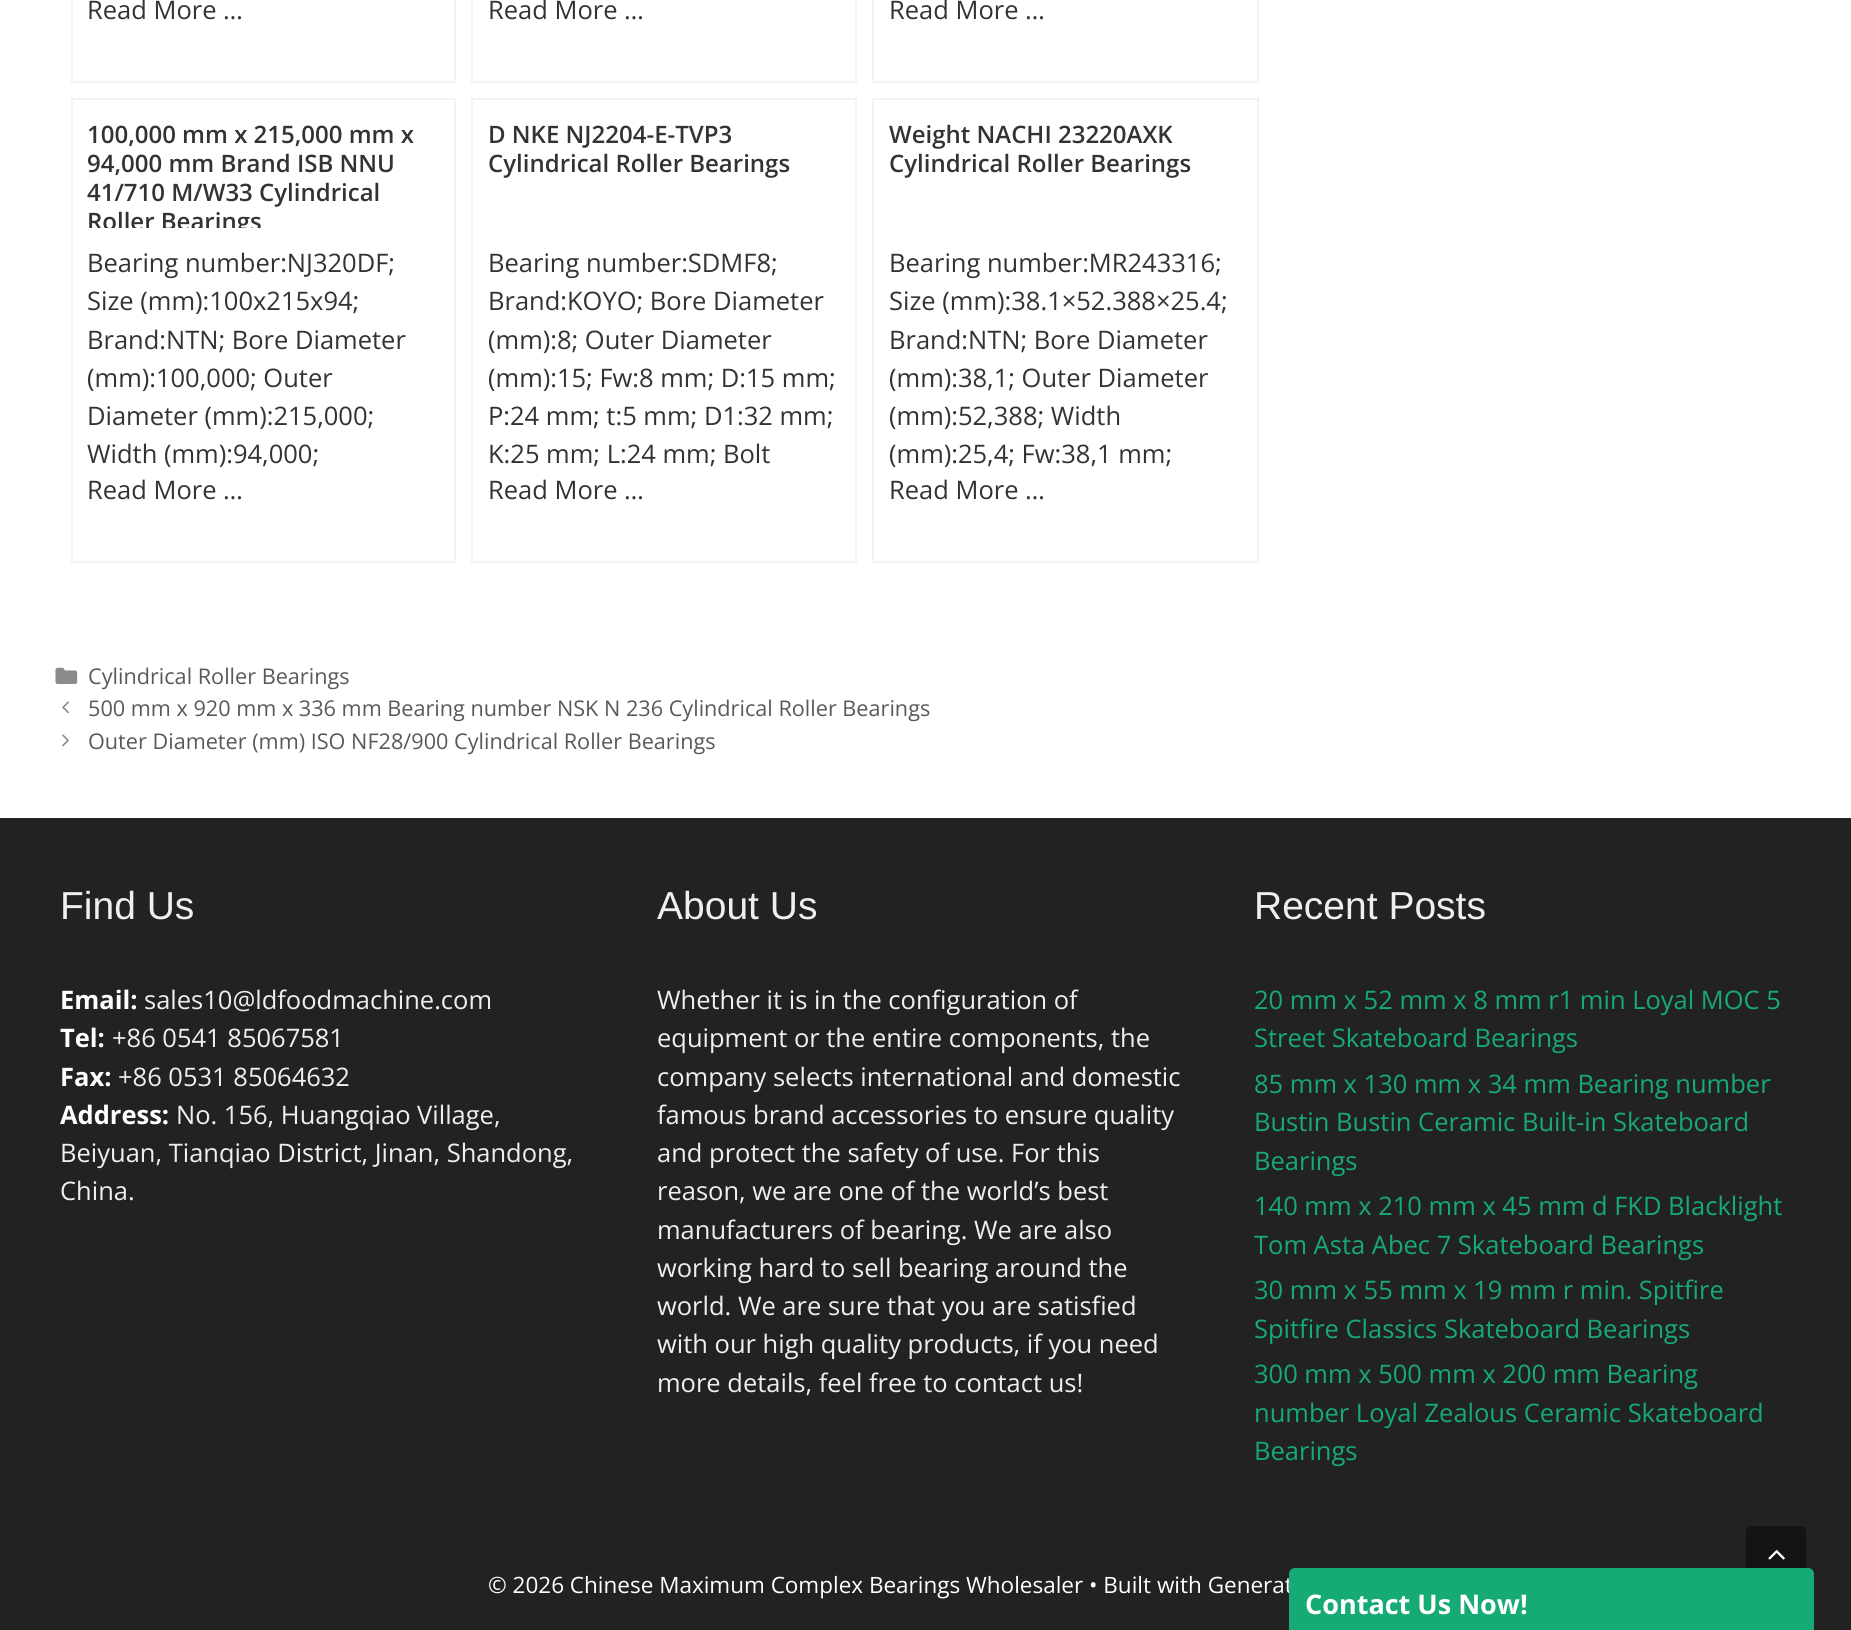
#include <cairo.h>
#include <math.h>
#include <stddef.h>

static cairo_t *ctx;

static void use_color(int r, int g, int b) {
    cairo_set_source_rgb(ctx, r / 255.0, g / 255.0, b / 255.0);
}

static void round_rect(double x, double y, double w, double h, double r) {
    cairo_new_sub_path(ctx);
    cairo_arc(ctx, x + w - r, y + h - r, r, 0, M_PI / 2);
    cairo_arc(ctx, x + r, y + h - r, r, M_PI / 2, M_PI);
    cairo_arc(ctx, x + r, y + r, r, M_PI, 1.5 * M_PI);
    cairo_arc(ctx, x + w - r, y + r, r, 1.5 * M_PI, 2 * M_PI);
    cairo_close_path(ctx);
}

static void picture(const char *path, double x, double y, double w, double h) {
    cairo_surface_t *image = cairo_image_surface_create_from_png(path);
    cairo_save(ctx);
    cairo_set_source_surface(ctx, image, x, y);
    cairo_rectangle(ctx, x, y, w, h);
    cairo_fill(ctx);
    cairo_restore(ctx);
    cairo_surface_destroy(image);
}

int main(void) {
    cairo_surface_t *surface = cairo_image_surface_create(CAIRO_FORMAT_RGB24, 1851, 1630);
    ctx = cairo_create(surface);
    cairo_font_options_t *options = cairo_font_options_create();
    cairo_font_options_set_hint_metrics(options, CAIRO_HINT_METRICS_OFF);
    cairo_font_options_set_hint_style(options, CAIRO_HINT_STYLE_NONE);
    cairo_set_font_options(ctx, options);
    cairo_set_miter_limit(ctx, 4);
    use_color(255, 255, 255);
    cairo_paint(ctx);
    cairo_rectangle(ctx, 72, -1, 383, 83);
    use_color(243, 243, 243);
    cairo_stroke(ctx);
    cairo_select_font_face(ctx, "Open Sans", CAIRO_FONT_SLANT_NORMAL, CAIRO_FONT_WEIGHT_NORMAL);
    cairo_set_font_size(ctx, 25.5);
    use_color(51, 51, 51);
    cairo_move_to(ctx, 87, 19);
    cairo_show_text(ctx, "Read More …");
    cairo_rectangle(ctx, 472, -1, 384, 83);
    use_color(243, 243, 243);
    cairo_stroke(ctx);
    use_color(51, 51, 51);
    cairo_move_to(ctx, 488, 19);
    cairo_show_text(ctx, "Read More …");
    cairo_rectangle(ctx, 873, -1, 385, 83);
    use_color(243, 243, 243);
    cairo_stroke(ctx);
    use_color(51, 51, 51);
    cairo_move_to(ctx, 889, 19);
    cairo_show_text(ctx, "Read More …");
    cairo_rectangle(ctx, 72, 99, 383, 463);
    use_color(243, 243, 243);
    cairo_stroke(ctx);
    cairo_select_font_face(ctx, "Open Sans SemiBold", CAIRO_FONT_SLANT_NORMAL, CAIRO_FONT_WEIGHT_NORMAL);
    cairo_set_font_size(ctx, 24);
    use_color(51, 51, 51);
    cairo_move_to(ctx, 87, 143);
    cairo_show_text(ctx, "100,000 mm x 215,000 mm x");
    cairo_move_to(ctx, 87, 172);
    cairo_show_text(ctx, "94,000 mm Brand ISB NNU");
    cairo_move_to(ctx, 87, 201);
    cairo_show_text(ctx, "41/710 M/W33 Cylindrical");
    cairo_save(ctx);
    cairo_rectangle(ctx, 87, 120, 353, 108);
    cairo_clip(ctx);
    cairo_move_to(ctx, 87, 230);
    cairo_show_text(ctx, "Roller Bearings");
    cairo_restore(ctx);
    cairo_select_font_face(ctx, "Open Sans", CAIRO_FONT_SLANT_NORMAL, CAIRO_FONT_WEIGHT_NORMAL);
    cairo_set_font_size(ctx, 25.5);
    cairo_move_to(ctx, 87, 272);
    cairo_show_text(ctx, "Bearing number:NJ320DF;");
    cairo_move_to(ctx, 87, 310);
    cairo_show_text(ctx, "Size (mm):100x215x94;");
    cairo_move_to(ctx, 87, 349);
    cairo_show_text(ctx, "Brand:NTN; Bore Diameter");
    cairo_move_to(ctx, 87, 387);
    cairo_show_text(ctx, "(mm):100,000; Outer");
    cairo_move_to(ctx, 87, 425);
    cairo_show_text(ctx, "Diameter (mm):215,000;");
    cairo_move_to(ctx, 87, 463);
    cairo_show_text(ctx, "Width (mm):94,000;");
    cairo_move_to(ctx, 87, 499);
    cairo_show_text(ctx, "Read More …");
    cairo_rectangle(ctx, 472, 99, 384, 463);
    use_color(243, 243, 243);
    cairo_stroke(ctx);
    cairo_select_font_face(ctx, "Open Sans SemiBold", CAIRO_FONT_SLANT_NORMAL, CAIRO_FONT_WEIGHT_NORMAL);
    cairo_set_font_size(ctx, 24);
    use_color(51, 51, 51);
    cairo_move_to(ctx, 488, 143);
    cairo_show_text(ctx, "D NKE NJ2204-E-TVP3");
    cairo_move_to(ctx, 488, 172);
    cairo_show_text(ctx, "Cylindrical Roller Bearings");
    cairo_select_font_face(ctx, "Open Sans", CAIRO_FONT_SLANT_NORMAL, CAIRO_FONT_WEIGHT_NORMAL);
    cairo_set_font_size(ctx, 25.5);
    cairo_move_to(ctx, 488, 272);
    cairo_show_text(ctx, "Bearing number:SDMF8;");
    cairo_move_to(ctx, 488, 310);
    cairo_show_text(ctx, "Brand:KOYO; Bore Diameter");
    cairo_move_to(ctx, 488, 349);
    cairo_show_text(ctx, "(mm):8; Outer Diameter");
    cairo_move_to(ctx, 488, 387);
    cairo_show_text(ctx, "(mm):15; Fw:8 mm; D:15 mm;");
    cairo_move_to(ctx, 488, 425);
    cairo_show_text(ctx, "P:24 mm; t:5 mm; D1:32 mm;");
    cairo_move_to(ctx, 488, 463);
    cairo_show_text(ctx, "K:25 mm; L:24 mm; Bolt");
    cairo_move_to(ctx, 488, 499);
    cairo_show_text(ctx, "Read More …");
    cairo_rectangle(ctx, 873, 99, 385, 463);
    use_color(243, 243, 243);
    cairo_stroke(ctx);
    cairo_select_font_face(ctx, "Open Sans SemiBold", CAIRO_FONT_SLANT_NORMAL, CAIRO_FONT_WEIGHT_NORMAL);
    cairo_set_font_size(ctx, 24);
    use_color(51, 51, 51);
    cairo_move_to(ctx, 889, 143);
    cairo_show_text(ctx, "Weight NACHI 23220AXK");
    cairo_move_to(ctx, 889, 172);
    cairo_show_text(ctx, "Cylindrical Roller Bearings");
    cairo_select_font_face(ctx, "Open Sans", CAIRO_FONT_SLANT_NORMAL, CAIRO_FONT_WEIGHT_NORMAL);
    cairo_set_font_size(ctx, 25.5);
    cairo_move_to(ctx, 889, 272);
    cairo_show_text(ctx, "Bearing number:MR243316;");
    cairo_move_to(ctx, 889, 310);
    cairo_show_text(ctx, "Size (mm):38.1×52.388×25.4;");
    cairo_move_to(ctx, 889, 349);
    cairo_show_text(ctx, "Brand:NTN; Bore Diameter");
    cairo_move_to(ctx, 889, 387);
    cairo_show_text(ctx, "(mm):38,1; Outer Diameter");
    cairo_move_to(ctx, 889, 425);
    cairo_show_text(ctx, "(mm):52,388; Width");
    cairo_move_to(ctx, 889, 463);
    cairo_show_text(ctx, "(mm):25,4; Fw:38,1 mm;");
    cairo_move_to(ctx, 889, 499);
    cairo_show_text(ctx, "Read More …");
    picture("img1.png", 55, 667, 23, 17);
    cairo_set_font_size(ctx, 21.65);
    use_color(89, 89, 89);
    cairo_move_to(ctx, 88, 684);
    cairo_show_text(ctx, "Cylindrical Roller Bearings");
    picture("img2.png", 62, 701, 7, 13);
    cairo_move_to(ctx, 88, 716);
    cairo_show_text(ctx, "500 mm x 920 mm x 336 mm Bearing number NSK N 236 Cylindrical Roller Bearings");
    picture("img3.png", 62, 734, 7, 13);
    cairo_move_to(ctx, 88, 749);
    cairo_show_text(ctx, "Outer Diameter (mm) ISO NF28/900 Cylindrical Roller Bearings");
    use_color(34, 34, 34);
    cairo_rectangle(ctx, 0, 818, 1851, 812);
    cairo_fill(ctx);
    cairo_select_font_face(ctx, "Liberation Sans", CAIRO_FONT_SLANT_NORMAL, CAIRO_FONT_WEIGHT_NORMAL);
    cairo_set_font_size(ctx, 39);
    use_color(239, 239, 239);
    cairo_move_to(ctx, 60, 919);
    cairo_show_text(ctx, "Find Us");
    cairo_select_font_face(ctx, "Open Sans", CAIRO_FONT_SLANT_NORMAL, CAIRO_FONT_WEIGHT_BOLD);
    cairo_set_font_size(ctx, 25.5);
    use_color(255, 255, 255);
    cairo_move_to(ctx, 60, 1009);
    cairo_show_text(ctx, "Email:");
    cairo_select_font_face(ctx, "Open Sans", CAIRO_FONT_SLANT_NORMAL, CAIRO_FONT_WEIGHT_NORMAL);
    use_color(239, 239, 239);
    cairo_move_to(ctx, 144, 1009);
    cairo_show_text(ctx, "sales10@ldfoodmachine.com");
    cairo_select_font_face(ctx, "Open Sans", CAIRO_FONT_SLANT_NORMAL, CAIRO_FONT_WEIGHT_BOLD);
    use_color(255, 255, 255);
    cairo_move_to(ctx, 60, 1047);
    cairo_show_text(ctx, "Tel:");
    cairo_select_font_face(ctx, "Open Sans", CAIRO_FONT_SLANT_NORMAL, CAIRO_FONT_WEIGHT_NORMAL);
    use_color(239, 239, 239);
    cairo_move_to(ctx, 112, 1047);
    cairo_show_text(ctx, "+86 0541 85067581");
    cairo_select_font_face(ctx, "Open Sans", CAIRO_FONT_SLANT_NORMAL, CAIRO_FONT_WEIGHT_BOLD);
    use_color(255, 255, 255);
    cairo_move_to(ctx, 60, 1086);
    cairo_show_text(ctx, "Fax:");
    cairo_select_font_face(ctx, "Open Sans", CAIRO_FONT_SLANT_NORMAL, CAIRO_FONT_WEIGHT_NORMAL);
    use_color(239, 239, 239);
    cairo_move_to(ctx, 118, 1086);
    cairo_show_text(ctx, "+86 0531 85064632");
    cairo_select_font_face(ctx, "Open Sans", CAIRO_FONT_SLANT_NORMAL, CAIRO_FONT_WEIGHT_BOLD);
    use_color(255, 255, 255);
    cairo_move_to(ctx, 60, 1124);
    cairo_show_text(ctx, "Address:");
    cairo_select_font_face(ctx, "Open Sans", CAIRO_FONT_SLANT_NORMAL, CAIRO_FONT_WEIGHT_NORMAL);
    use_color(239, 239, 239);
    cairo_move_to(ctx, 176, 1124);
    cairo_show_text(ctx, "No. 156, Huangqiao Village,");
    cairo_move_to(ctx, 60, 1162);
    cairo_show_text(ctx, "Beiyuan, Tianqiao District, Jinan, Shandong,");
    cairo_move_to(ctx, 60, 1200);
    cairo_show_text(ctx, "China.");
    cairo_select_font_face(ctx, "Liberation Sans", CAIRO_FONT_SLANT_NORMAL, CAIRO_FONT_WEIGHT_NORMAL);
    cairo_set_font_size(ctx, 39);
    cairo_move_to(ctx, 657, 919);
    cairo_show_text(ctx, "About Us");
    cairo_select_font_face(ctx, "Open Sans", CAIRO_FONT_SLANT_NORMAL, CAIRO_FONT_WEIGHT_NORMAL);
    cairo_set_font_size(ctx, 25.5);
    cairo_move_to(ctx, 657, 1009);
    cairo_show_text(ctx, "Whether it is in the configuration of");
    cairo_move_to(ctx, 657, 1047);
    cairo_show_text(ctx, "equipment or the entire components, the");
    cairo_move_to(ctx, 657, 1086);
    cairo_show_text(ctx, "company selects international and domestic");
    cairo_move_to(ctx, 657, 1124);
    cairo_show_text(ctx, "famous brand accessories to ensure quality");
    cairo_move_to(ctx, 657, 1162);
    cairo_show_text(ctx, "and protect the safety of use. For this");
    cairo_move_to(ctx, 657, 1200);
    cairo_show_text(ctx, "reason, we are one of the world’s best");
    cairo_move_to(ctx, 657, 1239);
    cairo_show_text(ctx, "manufacturers of bearing. We are also");
    cairo_move_to(ctx, 657, 1277);
    cairo_show_text(ctx, "working hard to sell bearing around the");
    cairo_move_to(ctx, 657, 1315);
    cairo_show_text(ctx, "world. We are sure that you are satisfied");
    cairo_move_to(ctx, 657, 1353);
    cairo_show_text(ctx, "with our high quality products, if you need");
    cairo_move_to(ctx, 657, 1392);
    cairo_show_text(ctx, "more details, feel free to contact us!");
    cairo_select_font_face(ctx, "Liberation Sans", CAIRO_FONT_SLANT_NORMAL, CAIRO_FONT_WEIGHT_NORMAL);
    cairo_set_font_size(ctx, 39);
    cairo_move_to(ctx, 1254, 919);
    cairo_show_text(ctx, "Recent Posts");
    cairo_select_font_face(ctx, "Open Sans", CAIRO_FONT_SLANT_NORMAL, CAIRO_FONT_WEIGHT_NORMAL);
    cairo_set_font_size(ctx, 25.5);
    use_color(22, 170, 116);
    cairo_move_to(ctx, 1254, 1009);
    cairo_show_text(ctx, "20 mm x 52 mm x 8 mm r1 min Loyal MOC 5");
    cairo_move_to(ctx, 1254, 1047);
    cairo_show_text(ctx, "Street Skateboard Bearings");
    cairo_move_to(ctx, 1254, 1093);
    cairo_show_text(ctx, "85 mm x 130 mm x 34 mm Bearing number");
    cairo_move_to(ctx, 1254, 1131);
    cairo_show_text(ctx, "Bustin Bustin Ceramic Built-in Skateboard");
    cairo_move_to(ctx, 1254, 1170);
    cairo_show_text(ctx, "Bearings");
    cairo_move_to(ctx, 1254, 1215);
    cairo_show_text(ctx, "140 mm x 210 mm x 45 mm d FKD Blacklight");
    cairo_move_to(ctx, 1254, 1254);
    cairo_show_text(ctx, "Tom Asta Abec 7 Skateboard Bearings");
    cairo_move_to(ctx, 1254, 1299);
    cairo_show_text(ctx, "30 mm x 55 mm x 19 mm r min. Spitfire");
    cairo_move_to(ctx, 1254, 1338);
    cairo_show_text(ctx, "Spitfire Classics Skateboard Bearings");
    cairo_move_to(ctx, 1254, 1383);
    cairo_show_text(ctx, "300 mm x 500 mm x 200 mm Bearing");
    cairo_move_to(ctx, 1254, 1422);
    cairo_show_text(ctx, "number Loyal Zealous Ceramic Skateboard");
    cairo_move_to(ctx, 1254, 1460);
    cairo_show_text(ctx, "Bearings");
    cairo_set_font_size(ctx, 22.5);
    use_color(255, 255, 255);
    cairo_move_to(ctx, 488, 1593);
    cairo_show_text(ctx, "© 2026 Chinese Maximum Complex Bearings Wholesaler • Built with Generat");
    use_color(20, 20, 20);
    round_rect(1746, 1526, 60, 60, 5);
    cairo_fill(ctx);
    picture("img4.png", 1768, 1549, 17, 11);
    use_color(22, 170, 116);
    cairo_new_path(ctx);
    cairo_move_to(ctx, 1295, 1569);
    cairo_line_to(ctx, 1808, 1569);
    cairo_curve_to(ctx, 1811, 1569, 1813, 1571, 1813, 1574);
    cairo_line_to(ctx, 1813, 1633);
    cairo_line_to(ctx, 1290, 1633);
    cairo_line_to(ctx, 1290, 1574);
    cairo_curve_to(ctx, 1290, 1571, 1292, 1569, 1295, 1569);
    cairo_close_path(ctx);
    cairo_fill_preserve(ctx);
    cairo_stroke(ctx);
    cairo_select_font_face(ctx, "Open Sans", CAIRO_FONT_SLANT_NORMAL, CAIRO_FONT_WEIGHT_BOLD);
    cairo_set_font_size(ctx, 27);
    use_color(255, 255, 255);
    cairo_move_to(ctx, 1305, 1614);
    cairo_show_text(ctx, "Contact Us Now!");
    cairo_surface_write_to_png(surface, "result.png");
    cairo_font_options_destroy(options);
    cairo_destroy(ctx);
    cairo_surface_destroy(surface);
    return 0;
}
